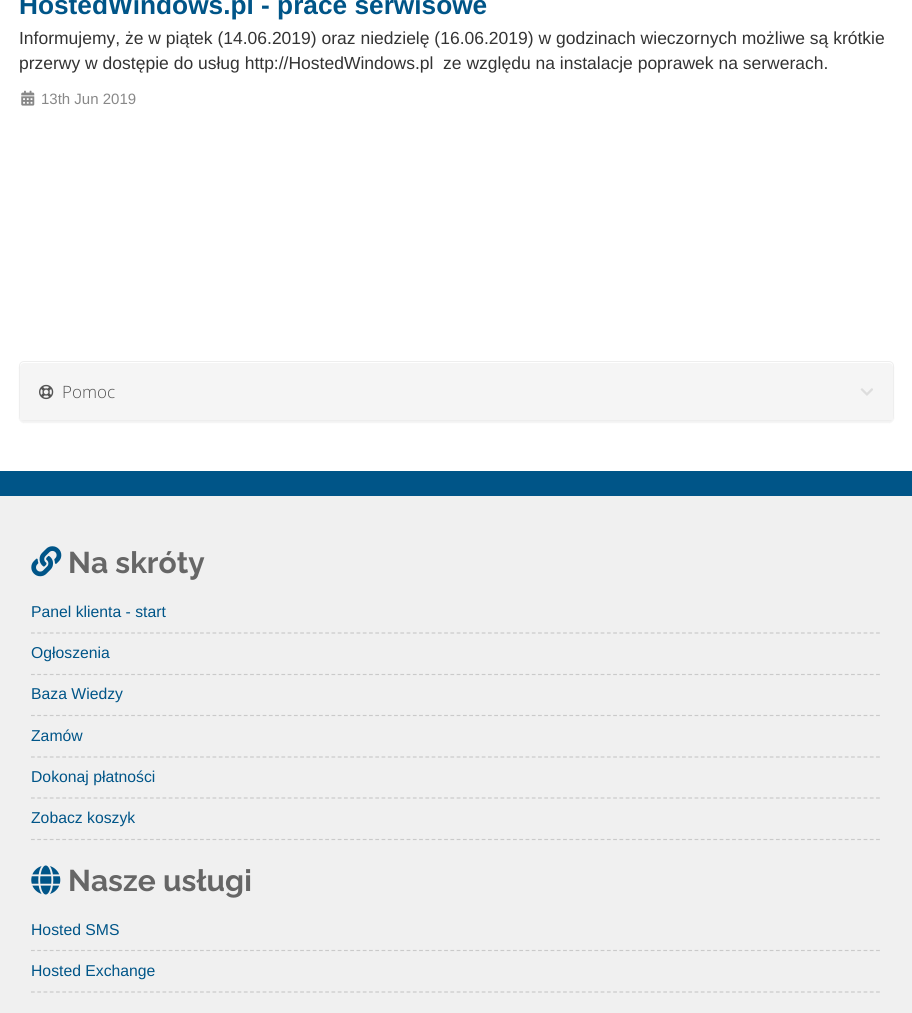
#include <cairo.h>
#include <math.h>
#include <stddef.h>

static cairo_t *ctx;

static void use_color(int r, int g, int b) {
    cairo_set_source_rgb(ctx, r / 255.0, g / 255.0, b / 255.0);
}

static void round_rect(double x, double y, double w, double h, double r) {
    cairo_new_sub_path(ctx);
    cairo_arc(ctx, x + w - r, y + h - r, r, 0, M_PI / 2);
    cairo_arc(ctx, x + r, y + h - r, r, M_PI / 2, M_PI);
    cairo_arc(ctx, x + r, y + r, r, M_PI, 1.5 * M_PI);
    cairo_arc(ctx, x + w - r, y + r, r, 1.5 * M_PI, 2 * M_PI);
    cairo_close_path(ctx);
}

static void shadow(double x, double y, double w, double h, double r, double blur, double alpha) {
    cairo_push_group_with_content(ctx, CAIRO_CONTENT_ALPHA);
    cairo_set_operator(ctx, CAIRO_OPERATOR_SOURCE);
    for (int i = 15; i >= -15 && fmin(w, h) + blur * i / 3 > 0; i -= 2) {
        double e = blur * i / 6;
        cairo_set_source_rgba(ctx, 0, 0, 0, alpha * erfc((i - 1) / 8.5) / 2);
        round_rect(x - e, y - e, w + 2 * e, h + 2 * e, fmax(0, fmin(r + e + blur * .6, fmin(w, h) / 2 + e)));
        cairo_fill(ctx);
    }
    cairo_pattern_t *soft = cairo_pop_group(ctx);
    cairo_mask(ctx, soft);
    cairo_pattern_destroy(soft);
}

static void picture(const char *path, double x, double y, double w, double h) {
    cairo_surface_t *image = cairo_image_surface_create_from_png(path);
    cairo_save(ctx);
    cairo_set_source_surface(ctx, image, x, y);
    cairo_rectangle(ctx, x, y, w, h);
    cairo_fill(ctx);
    cairo_restore(ctx);
    cairo_surface_destroy(image);
}

int main(void) {
    cairo_surface_t *surface = cairo_image_surface_create(CAIRO_FORMAT_RGB24, 912, 1013);
    ctx = cairo_create(surface);
    cairo_font_options_t *options = cairo_font_options_create();
    cairo_font_options_set_hint_metrics(options, CAIRO_HINT_METRICS_OFF);
    cairo_font_options_set_hint_style(options, CAIRO_HINT_STYLE_NONE);
    cairo_set_font_options(ctx, options);
    cairo_set_miter_limit(ctx, 4);
    use_color(255, 255, 255);
    cairo_paint(ctx);
    cairo_select_font_face(ctx, "Liberation Sans", CAIRO_FONT_SLANT_NORMAL, CAIRO_FONT_WEIGHT_BOLD);
    cairo_set_font_size(ctx, 26.25);
    use_color(0, 85, 136);
    cairo_move_to(ctx, 19, 14);
    cairo_show_text(ctx, "HostedWindows.pl - prace serwisowe");
    cairo_select_font_face(ctx, "Liberation Sans", CAIRO_FONT_SLANT_NORMAL, CAIRO_FONT_WEIGHT_NORMAL);
    cairo_set_font_size(ctx, 17.5);
    use_color(51, 51, 51);
    cairo_move_to(ctx, 19, 44);
    cairo_show_text(ctx, "Informujemy, że w piątek (14.06.2019) oraz niedzielę (16.06.2019) w godzinach wieczornych możliwe są krótkie");
    cairo_move_to(ctx, 19, 69);
    cairo_show_text(ctx, "przerwy w dostępie do usług http://HostedWindows.pl  ze względu na instalacje poprawek na serwerach.");
    picture("img1.png", 21, 90, 14, 16);
    cairo_set_font_size(ctx, 15);
    use_color(136, 136, 136);
    cairo_move_to(ctx, 41, 104);
    cairo_show_text(ctx, "13th Jun 2019");
    use_color(0, 0, 0);
    shadow(19, 363, 875, 60, 5, 0.5, 0.05);
    use_color(255, 255, 255);
    round_rect(19.5, 361.5, 874, 59, 4.5);
    cairo_fill_preserve(ctx);
    use_color(238, 238, 238);
    cairo_set_line_width(ctx, 1);
    cairo_stroke(ctx);
    use_color(245, 245, 245);
    cairo_new_path(ctx);
    cairo_move_to(ctx, 24, 363);
    cairo_line_to(ctx, 889, 363);
    cairo_curve_to(ctx, 891, 363, 893, 365, 893, 367);
    cairo_line_to(ctx, 893, 420);
    cairo_line_to(ctx, 20, 420);
    cairo_line_to(ctx, 20, 367);
    cairo_curve_to(ctx, 20, 365, 22, 363, 24, 363);
    cairo_close_path(ctx);
    cairo_fill(ctx);
    picture("img2.png", 39, 384, 15, 16);
    cairo_select_font_face(ctx, "Open Sans Light", CAIRO_FONT_SLANT_NORMAL, CAIRO_FONT_WEIGHT_NORMAL);
    cairo_set_font_size(ctx, 17);
    use_color(85, 85, 85);
    cairo_move_to(ctx, 62, 398);
    cairo_show_text(ctx, "Pomoc");
    picture("img3.png", 860, 388, 13, 8);
    use_color(240, 240, 240);
    cairo_rectangle(ctx, 0, 496, 912, 517);
    cairo_fill(ctx);
    use_color(0, 85, 136);
    cairo_rectangle(ctx, 0, 471, 912, 25);
    cairo_fill(ctx);
    picture("img4.png", 31, 546, 31, 31);
    cairo_select_font_face(ctx, "Raleway", CAIRO_FONT_SLANT_NORMAL, CAIRO_FONT_WEIGHT_BOLD);
    cairo_set_font_size(ctx, 30);
    use_color(102, 102, 102);
    cairo_move_to(ctx, 68, 573);
    cairo_show_text(ctx, "Na skróty");
    cairo_new_path(ctx);
    cairo_move_to(ctx, 31, 633);
    cairo_line_to(ctx, 881, 633);
    use_color(202, 202, 202);
    cairo_set_line_width(ctx, 1.2);
    cairo_set_dash(ctx, (double[]){3.75, 2.51}, 2, 0);
    cairo_stroke(ctx);
    cairo_select_font_face(ctx, "Liberation Sans", CAIRO_FONT_SLANT_NORMAL, CAIRO_FONT_WEIGHT_NORMAL);
    cairo_set_font_size(ctx, 15.75);
    use_color(0, 85, 136);
    cairo_move_to(ctx, 31, 617);
    cairo_show_text(ctx, "Panel klienta - start");
    cairo_new_path(ctx);
    cairo_move_to(ctx, 31, 674.5);
    cairo_line_to(ctx, 881, 674.5);
    use_color(202, 202, 202);
    cairo_stroke(ctx);
    use_color(0, 85, 136);
    cairo_move_to(ctx, 31, 658);
    cairo_show_text(ctx, "Ogłoszenia");
    cairo_new_path(ctx);
    cairo_move_to(ctx, 31, 715.5);
    cairo_line_to(ctx, 881, 715.5);
    use_color(202, 202, 202);
    cairo_stroke(ctx);
    use_color(0, 85, 136);
    cairo_move_to(ctx, 31, 699);
    cairo_show_text(ctx, "Baza Wiedzy");
    cairo_new_path(ctx);
    cairo_move_to(ctx, 31, 757);
    cairo_line_to(ctx, 881, 757);
    use_color(202, 202, 202);
    cairo_stroke(ctx);
    use_color(0, 85, 136);
    cairo_move_to(ctx, 31, 741);
    cairo_show_text(ctx, "Zamów");
    cairo_new_path(ctx);
    cairo_move_to(ctx, 31, 798);
    cairo_line_to(ctx, 881, 798);
    use_color(202, 202, 202);
    cairo_stroke(ctx);
    use_color(0, 85, 136);
    cairo_move_to(ctx, 31, 782);
    cairo_show_text(ctx, "Dokonaj płatności");
    cairo_new_path(ctx);
    cairo_move_to(ctx, 31, 839.5);
    cairo_line_to(ctx, 881, 839.5);
    use_color(202, 202, 202);
    cairo_stroke(ctx);
    use_color(0, 85, 136);
    cairo_move_to(ctx, 31, 823);
    cairo_show_text(ctx, "Zobacz koszyk");
    picture("img5.png", 31, 865, 30, 30);
    cairo_select_font_face(ctx, "Raleway", CAIRO_FONT_SLANT_NORMAL, CAIRO_FONT_WEIGHT_BOLD);
    cairo_set_font_size(ctx, 30);
    use_color(102, 102, 102);
    cairo_move_to(ctx, 68, 891);
    cairo_show_text(ctx, "Nasze usługi");
    cairo_new_path(ctx);
    cairo_move_to(ctx, 31, 950.5);
    cairo_line_to(ctx, 881, 950.5);
    use_color(202, 202, 202);
    cairo_stroke(ctx);
    cairo_select_font_face(ctx, "Liberation Sans", CAIRO_FONT_SLANT_NORMAL, CAIRO_FONT_WEIGHT_NORMAL);
    cairo_set_font_size(ctx, 15.75);
    use_color(0, 85, 136);
    cairo_move_to(ctx, 31, 935);
    cairo_show_text(ctx, "Hosted SMS");
    cairo_new_path(ctx);
    cairo_move_to(ctx, 31, 992);
    cairo_line_to(ctx, 881, 992);
    use_color(202, 202, 202);
    cairo_stroke(ctx);
    use_color(0, 85, 136);
    cairo_move_to(ctx, 31, 976);
    cairo_show_text(ctx, "Hosted Exchange");
    cairo_surface_write_to_png(surface, "result.png");
    cairo_font_options_destroy(options);
    cairo_destroy(ctx);
    cairo_surface_destroy(surface);
    return 0;
}
